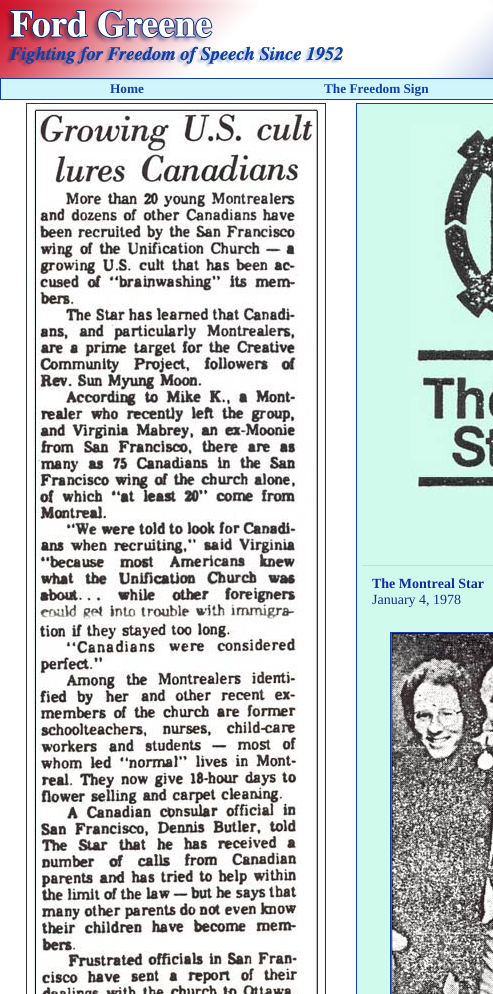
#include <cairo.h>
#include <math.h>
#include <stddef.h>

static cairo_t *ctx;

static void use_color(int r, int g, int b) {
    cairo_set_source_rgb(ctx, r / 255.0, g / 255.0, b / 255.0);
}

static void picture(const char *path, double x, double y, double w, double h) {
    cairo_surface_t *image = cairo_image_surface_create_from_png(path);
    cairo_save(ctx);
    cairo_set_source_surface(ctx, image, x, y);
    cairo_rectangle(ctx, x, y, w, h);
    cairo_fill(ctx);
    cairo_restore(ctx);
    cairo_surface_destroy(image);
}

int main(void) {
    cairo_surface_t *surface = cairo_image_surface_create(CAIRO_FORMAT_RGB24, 493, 994);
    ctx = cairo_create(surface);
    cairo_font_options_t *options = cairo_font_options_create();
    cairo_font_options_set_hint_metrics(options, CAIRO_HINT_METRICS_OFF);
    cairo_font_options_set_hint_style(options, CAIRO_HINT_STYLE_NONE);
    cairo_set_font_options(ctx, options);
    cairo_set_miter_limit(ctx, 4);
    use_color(255, 255, 255);
    cairo_paint(ctx);
    picture("img1.png", 0, 0, 493, 78);
    use_color(16, 64, 167);
    cairo_rectangle(ctx, 0, 78, 493, 22);
    cairo_fill(ctx);
    use_color(208, 245, 250);
    cairo_rectangle(ctx, 1, 79, 492, 20);
    cairo_fill(ctx);
    cairo_select_font_face(ctx, "Liberation Serif", CAIRO_FONT_SLANT_NORMAL, CAIRO_FONT_WEIGHT_BOLD);
    cairo_set_font_size(ctx, 13.25);
    use_color(16, 64, 167);
    cairo_move_to(ctx, 110, 93);
    cairo_show_text(ctx, "Home");
    cairo_move_to(ctx, 324, 93);
    cairo_show_text(ctx, "The Freedom Sign");
    picture("img2.png", 26, 103, 300, 891);
    use_color(208, 250, 235);
    cairo_rectangle(ctx, 356.5, 103.5, 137, 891);
    cairo_fill_preserve(ctx);
    use_color(16, 64, 167);
    cairo_set_line_width(ctx, 1);
    cairo_stroke(ctx);
    picture("img3.png", 411, 125, 82, 366);
    use_color(186, 226, 221);
    cairo_rectangle(ctx, 362, 565, 131, 1);
    cairo_fill(ctx);
    cairo_set_font_size(ctx, 14);
    use_color(16, 41, 167);
    cairo_move_to(ctx, 372, 588);
    cairo_show_text(ctx, "The Montreal Star");
    cairo_select_font_face(ctx, "Liberation Serif", CAIRO_FONT_SLANT_NORMAL, CAIRO_FONT_WEIGHT_NORMAL);
    cairo_move_to(ctx, 372, 604);
    cairo_show_text(ctx, "January 4, 1978");
    cairo_rectangle(ctx, 390.5, 632.5, 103, 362);
    use_color(16, 64, 167);
    cairo_stroke(ctx);
    picture("img4.png", 391, 633, 102, 361);
    cairo_surface_write_to_png(surface, "result.png");
    cairo_font_options_destroy(options);
    cairo_destroy(ctx);
    cairo_surface_destroy(surface);
    return 0;
}
